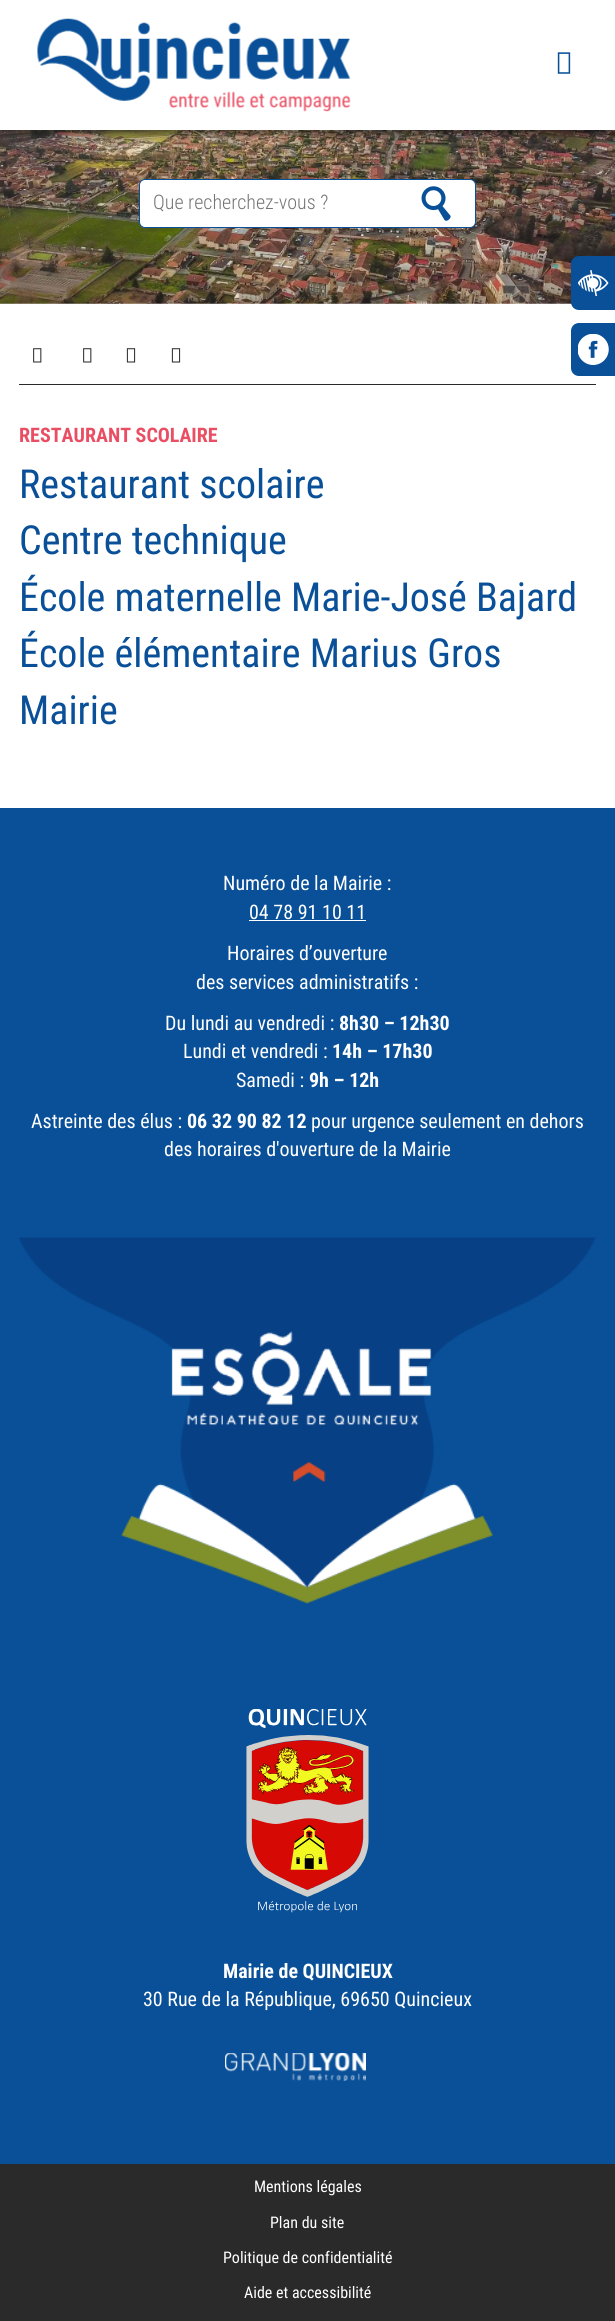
#include <cairo.h>
#include <math.h>
#include <stddef.h>

static cairo_t *ctx;

static void use_color(int r, int g, int b) {
    cairo_set_source_rgb(ctx, r / 255.0, g / 255.0, b / 255.0);
}

static void round_rect(double x, double y, double w, double h, double r) {
    cairo_new_sub_path(ctx);
    cairo_arc(ctx, x + w - r, y + h - r, r, 0, M_PI / 2);
    cairo_arc(ctx, x + r, y + h - r, r, M_PI / 2, M_PI);
    cairo_arc(ctx, x + r, y + r, r, M_PI, 1.5 * M_PI);
    cairo_arc(ctx, x + w - r, y + r, r, 1.5 * M_PI, 2 * M_PI);
    cairo_close_path(ctx);
}

static void shadow(double x, double y, double w, double h, double r, double blur, double alpha) {
    cairo_push_group_with_content(ctx, CAIRO_CONTENT_ALPHA);
    cairo_set_operator(ctx, CAIRO_OPERATOR_SOURCE);
    for (int i = 15; i >= -15 && fmin(w, h) + blur * i / 3 > 0; i -= 2) {
        double e = blur * i / 6;
        cairo_set_source_rgba(ctx, 0, 0, 0, alpha * erfc((i - 1) / 8.5) / 2);
        round_rect(x - e, y - e, w + 2 * e, h + 2 * e, fmax(0, fmin(r + e + blur * .6, fmin(w, h) / 2 + e)));
        cairo_fill(ctx);
    }
    cairo_pattern_t *soft = cairo_pop_group(ctx);
    cairo_mask(ctx, soft);
    cairo_pattern_destroy(soft);
}

static void picture(const char *path, double x, double y, double w, double h) {
    cairo_surface_t *image = cairo_image_surface_create_from_png(path);
    cairo_save(ctx);
    cairo_set_source_surface(ctx, image, x, y);
    cairo_rectangle(ctx, x, y, w, h);
    cairo_fill(ctx);
    cairo_restore(ctx);
    cairo_surface_destroy(image);
}

int main(void) {
    cairo_surface_t *surface = cairo_image_surface_create(CAIRO_FORMAT_RGB24, 615, 2321);
    ctx = cairo_create(surface);
    cairo_font_options_t *options = cairo_font_options_create();
    cairo_font_options_set_hint_metrics(options, CAIRO_HINT_METRICS_OFF);
    cairo_font_options_set_hint_style(options, CAIRO_HINT_STYLE_NONE);
    cairo_set_font_options(ctx, options);
    cairo_set_miter_limit(ctx, 4);
    use_color(255, 255, 255);
    cairo_paint(ctx);
    picture("img3.png", 0, 130, 615, 174);
    use_color(0, 0, 0);
    shadow(0, 4, 615, 130, 0, 4, 0.5);
    use_color(255, 255, 255);
    cairo_rectangle(ctx, 0, 0, 615, 130);
    cairo_fill(ctx);
    picture("img1.png", 37, 18, 314, 94);
    picture("img2.png", 557, 52, 14, 22);
    round_rect(139.5, 179.5, 336, 48, 5.5);
    cairo_fill_preserve(ctx);
    use_color(9, 80, 152);
    cairo_set_line_width(ctx, 1);
    cairo_stroke(ctx);
    cairo_select_font_face(ctx, "Roboto Condensed Light", CAIRO_FONT_SLANT_NORMAL, CAIRO_FONT_WEIGHT_NORMAL);
    cairo_set_font_size(ctx, 20);
    use_color(117, 117, 117);
    cairo_move_to(ctx, 153, 209);
    cairo_show_text(ctx, "Que recherchez-vous ?");
    picture("img4.png", 421, 186, 30, 35);
    use_color(9, 80, 152);
    cairo_new_path(ctx);
    cairo_move_to(ctx, 579, 256);
    cairo_line_to(ctx, 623, 256);
    cairo_line_to(ctx, 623, 310);
    cairo_line_to(ctx, 579, 310);
    cairo_curve_to(ctx, 574.5, 310, 571, 306.5, 571, 302);
    cairo_line_to(ctx, 571, 264);
    cairo_curve_to(ctx, 571, 259.5, 574.5, 256, 579, 256);
    cairo_close_path(ctx);
    cairo_fill(ctx);
    picture("img5.png", 578, 270, 31, 26);
    cairo_new_path(ctx);
    cairo_move_to(ctx, 579, 323);
    cairo_line_to(ctx, 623, 323);
    cairo_line_to(ctx, 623, 376);
    cairo_line_to(ctx, 579, 376);
    cairo_curve_to(ctx, 574.5, 376, 571, 372.5, 571, 368);
    cairo_line_to(ctx, 571, 331);
    cairo_curve_to(ctx, 571, 326.5, 574.5, 323, 579, 323);
    cairo_close_path(ctx);
    cairo_fill(ctx);
    picture("img6.png", 578, 334, 31, 31);
    use_color(42, 42, 42);
    cairo_rectangle(ctx, 19, 384, 577, 1);
    cairo_fill(ctx);
    picture("img7.png", 33, 348, 9, 15);
    picture("img7.png", 83, 348, 9, 15);
    picture("img8.png", 126, 348, 10, 15);
    picture("img8.png", 171, 348, 10, 15);
    cairo_select_font_face(ctx, "Roboto Condensed", CAIRO_FONT_SLANT_NORMAL, CAIRO_FONT_WEIGHT_BOLD);
    use_color(234, 78, 99);
    cairo_move_to(ctx, 19, 442);
    cairo_show_text(ctx, "RESTAURANT SCOLAIRE");
    cairo_select_font_face(ctx, "Roboto Condensed", CAIRO_FONT_SLANT_NORMAL, CAIRO_FONT_WEIGHT_NORMAL);
    cairo_set_font_size(ctx, 40);
    use_color(9, 80, 152);
    cairo_move_to(ctx, 19, 498);
    cairo_show_text(ctx, "Restaurant scolaire");
    cairo_move_to(ctx, 19, 554);
    cairo_show_text(ctx, "Centre technique");
    cairo_move_to(ctx, 19, 611);
    cairo_show_text(ctx, "École maternelle Marie-José Bajard");
    cairo_move_to(ctx, 19, 667);
    cairo_show_text(ctx, "École élémentaire Marius Gros");
    cairo_move_to(ctx, 19, 724);
    cairo_show_text(ctx, "Mairie");
    cairo_rectangle(ctx, 0, 808, 615, 1356);
    cairo_fill(ctx);
    cairo_set_font_size(ctx, 20);
    use_color(255, 255, 255);
    cairo_move_to(ctx, 223, 890);
    cairo_show_text(ctx, "Numéro de la Mairie :");
    cairo_move_to(ctx, 249, 919);
    cairo_show_text(ctx, "04 78 91 10 11");
    cairo_rectangle(ctx, 249, 920, 117, 1);
    cairo_fill(ctx);
    cairo_move_to(ctx, 227, 960);
    cairo_show_text(ctx, "Horaires d’ouverture");
    cairo_move_to(ctx, 196, 989);
    cairo_show_text(ctx, "des services administratifs :");
    cairo_move_to(ctx, 165, 1030);
    cairo_show_text(ctx, "Du lundi au vendredi :");
    cairo_select_font_face(ctx, "Roboto Condensed", CAIRO_FONT_SLANT_NORMAL, CAIRO_FONT_WEIGHT_BOLD);
    cairo_move_to(ctx, 339, 1030);
    cairo_show_text(ctx, "8h30 – 12h30");
    cairo_select_font_face(ctx, "Roboto Condensed", CAIRO_FONT_SLANT_NORMAL, CAIRO_FONT_WEIGHT_NORMAL);
    cairo_move_to(ctx, 183, 1058);
    cairo_show_text(ctx, "Lundi et vendredi :");
    cairo_select_font_face(ctx, "Roboto Condensed", CAIRO_FONT_SLANT_NORMAL, CAIRO_FONT_WEIGHT_BOLD);
    cairo_move_to(ctx, 332, 1058);
    cairo_show_text(ctx, "14h – 17h30");
    cairo_select_font_face(ctx, "Roboto Condensed", CAIRO_FONT_SLANT_NORMAL, CAIRO_FONT_WEIGHT_NORMAL);
    cairo_move_to(ctx, 236, 1087);
    cairo_show_text(ctx, "Samedi :");
    cairo_select_font_face(ctx, "Roboto Condensed", CAIRO_FONT_SLANT_NORMAL, CAIRO_FONT_WEIGHT_BOLD);
    cairo_move_to(ctx, 309, 1087);
    cairo_show_text(ctx, "9h – 12h");
    cairo_select_font_face(ctx, "Roboto Condensed", CAIRO_FONT_SLANT_NORMAL, CAIRO_FONT_WEIGHT_NORMAL);
    cairo_move_to(ctx, 31, 1128);
    cairo_show_text(ctx, "Astreinte des élus :");
    cairo_select_font_face(ctx, "Roboto Condensed", CAIRO_FONT_SLANT_NORMAL, CAIRO_FONT_WEIGHT_BOLD);
    cairo_move_to(ctx, 187, 1128);
    cairo_show_text(ctx, "06 32 90 82 12");
    cairo_select_font_face(ctx, "Roboto Condensed", CAIRO_FONT_SLANT_NORMAL, CAIRO_FONT_WEIGHT_NORMAL);
    cairo_move_to(ctx, 311, 1128);
    cairo_show_text(ctx, "pour urgence seulement en dehors");
    cairo_move_to(ctx, 164, 1156);
    cairo_show_text(ctx, "des horaires d'ouverture de la Mairie");
    picture("img9.png", 19, 1237, 577, 367);
    picture("img10.png", 246, 1709, 123, 204);
    cairo_select_font_face(ctx, "Roboto Condensed", CAIRO_FONT_SLANT_NORMAL, CAIRO_FONT_WEIGHT_BOLD);
    cairo_move_to(ctx, 223, 1978);
    cairo_show_text(ctx, "Mairie de QUINCIEUX");
    cairo_select_font_face(ctx, "Roboto Condensed", CAIRO_FONT_SLANT_NORMAL, CAIRO_FONT_WEIGHT_NORMAL);
    cairo_move_to(ctx, 143, 2006);
    cairo_show_text(ctx, "30 Rue de la République, 69650 Quincieux");
    picture("img11.png", 225, 2053, 141, 28);
    use_color(42, 42, 42);
    cairo_rectangle(ctx, 0, 2164, 615, 157);
    cairo_fill(ctx);
    cairo_set_font_size(ctx, 16);
    use_color(255, 255, 255);
    cairo_move_to(ctx, 254, 2192);
    cairo_show_text(ctx, "Mentions légales");
    cairo_move_to(ctx, 270, 2228);
    cairo_show_text(ctx, "Plan du site");
    cairo_move_to(ctx, 223, 2263);
    cairo_show_text(ctx, "Politique de confidentialité");
    cairo_move_to(ctx, 244, 2298);
    cairo_show_text(ctx, "Aide et accessibilité");
    cairo_surface_write_to_png(surface, "result.png");
    cairo_font_options_destroy(options);
    cairo_destroy(ctx);
    cairo_surface_destroy(surface);
    return 0;
}
